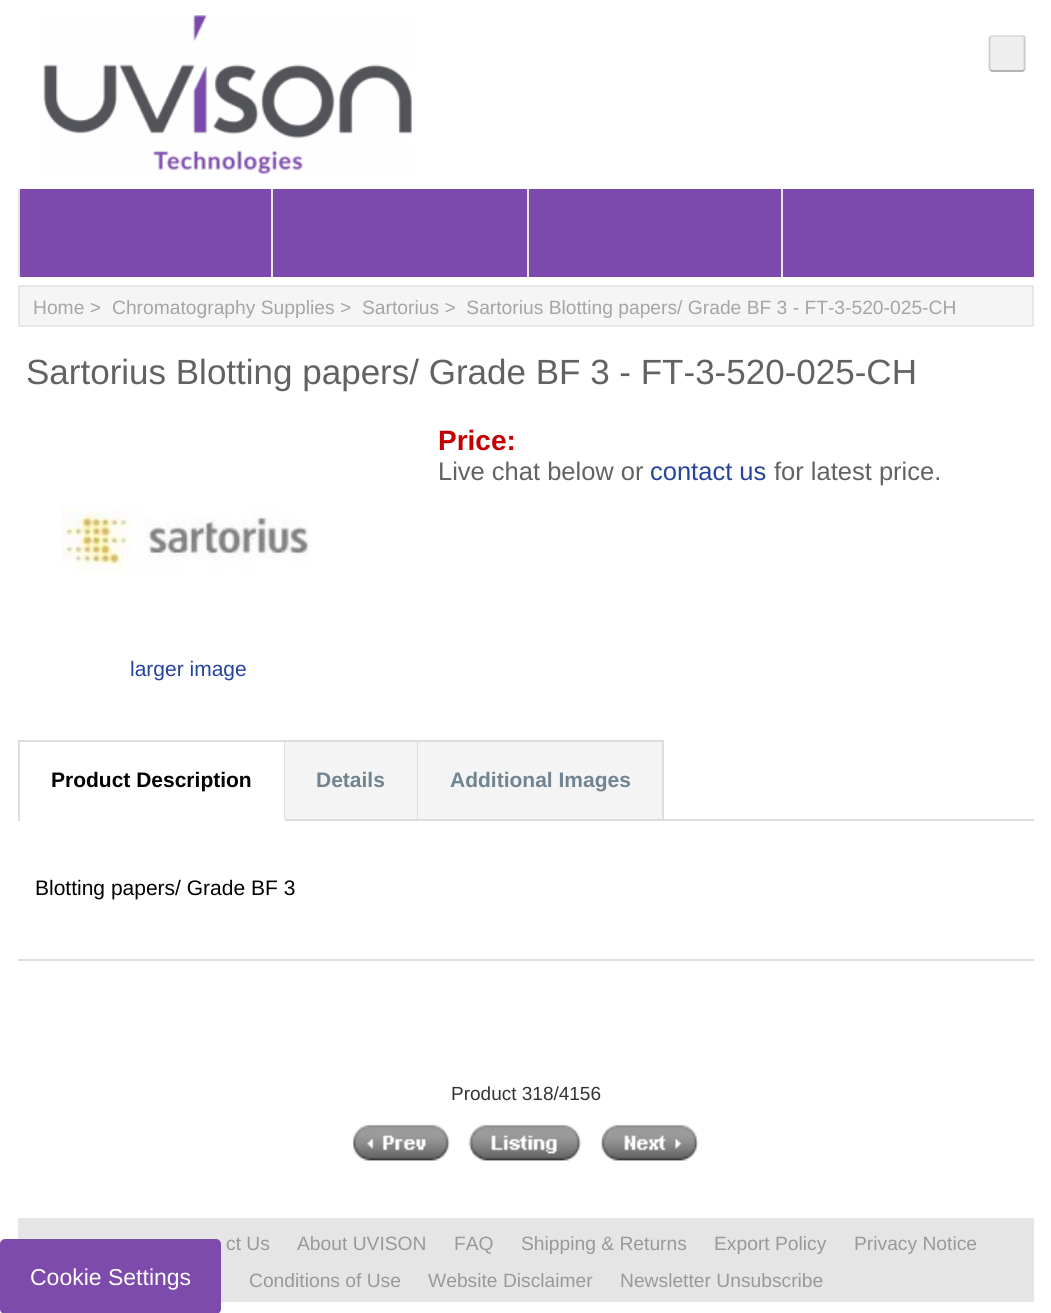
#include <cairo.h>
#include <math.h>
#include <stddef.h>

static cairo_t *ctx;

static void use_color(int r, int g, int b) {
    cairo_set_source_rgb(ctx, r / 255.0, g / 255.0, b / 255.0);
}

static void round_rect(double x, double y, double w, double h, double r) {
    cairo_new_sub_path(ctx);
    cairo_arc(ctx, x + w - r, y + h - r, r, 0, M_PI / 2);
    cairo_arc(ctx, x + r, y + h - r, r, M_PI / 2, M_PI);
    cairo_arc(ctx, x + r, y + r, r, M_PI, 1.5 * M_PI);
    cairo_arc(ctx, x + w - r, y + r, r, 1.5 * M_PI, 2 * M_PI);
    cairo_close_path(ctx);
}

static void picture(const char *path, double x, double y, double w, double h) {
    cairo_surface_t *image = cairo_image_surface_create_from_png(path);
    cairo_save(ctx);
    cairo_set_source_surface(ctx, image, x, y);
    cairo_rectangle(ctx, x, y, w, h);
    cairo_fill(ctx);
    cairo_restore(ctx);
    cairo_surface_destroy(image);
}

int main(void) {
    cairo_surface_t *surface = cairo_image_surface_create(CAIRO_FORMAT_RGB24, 1051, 1313);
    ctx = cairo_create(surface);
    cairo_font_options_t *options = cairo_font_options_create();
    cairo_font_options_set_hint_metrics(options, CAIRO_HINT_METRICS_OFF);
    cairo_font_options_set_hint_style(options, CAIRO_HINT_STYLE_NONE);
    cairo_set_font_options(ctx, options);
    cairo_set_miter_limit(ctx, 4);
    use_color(255, 255, 255);
    cairo_paint(ctx);
    picture("img1.png", 43, 15, 369, 160);
    use_color(238, 238, 238);
    round_rect(989, 35, 37, 37, 4);
    cairo_fill(ctx);
    cairo_new_path(ctx);
    cairo_move_to(ctx, 990.5, 36.5);
    cairo_curve_to(ctx, 991, 36, 991.5, 36, 992, 36);
    cairo_line_to(ctx, 1022, 36);
    cairo_curve_to(ctx, 1022.5, 36, 1023.5, 36, 1024, 36.5);
    use_color(221, 221, 221);
    cairo_set_line_width(ctx, 1.8);
    cairo_stroke(ctx);
    cairo_new_path(ctx);
    cairo_move_to(ctx, 1024, 36.5);
    cairo_curve_to(ctx, 1024.5, 37, 1024.5, 38, 1024.5, 38.5);
    cairo_line_to(ctx, 1024.5, 68);
    cairo_curve_to(ctx, 1024.5, 69, 1024.5, 69.5, 1024, 70);
    use_color(204, 204, 204);
    cairo_stroke(ctx);
    cairo_new_path(ctx);
    cairo_move_to(ctx, 1024, 70);
    cairo_curve_to(ctx, 1023.5, 70.5, 1022.5, 71, 1022, 71);
    cairo_line_to(ctx, 992, 71);
    cairo_curve_to(ctx, 991.5, 71, 991, 70.5, 990.5, 70);
    use_color(170, 170, 170);
    cairo_stroke(ctx);
    cairo_new_path(ctx);
    cairo_move_to(ctx, 990.5, 70);
    cairo_curve_to(ctx, 990, 69.5, 989.5, 69, 989.5, 68);
    cairo_line_to(ctx, 989.5, 38.5);
    cairo_curve_to(ctx, 989.5, 38, 990, 37, 990.5, 36.5);
    use_color(204, 204, 204);
    cairo_stroke(ctx);
    use_color(124, 74, 172);
    cairo_rectangle(ctx, 20, 189, 1014, 88);
    cairo_fill(ctx);
    use_color(228, 228, 228);
    cairo_rectangle(ctx, 18, 189, 2, 88);
    cairo_fill(ctx);
    cairo_rectangle(ctx, 271, 189, 2, 88);
    cairo_fill(ctx);
    cairo_rectangle(ctx, 527, 189, 2, 88);
    cairo_fill(ctx);
    cairo_rectangle(ctx, 781, 189, 2, 88);
    cairo_fill(ctx);
    use_color(245, 245, 245);
    cairo_rectangle(ctx, 19, 286, 1014, 40);
    cairo_fill_preserve(ctx);
    use_color(231, 231, 231);
    cairo_set_line_width(ctx, 2);
    cairo_stroke(ctx);
    cairo_select_font_face(ctx, "Liberation Sans", CAIRO_FONT_SLANT_NORMAL, CAIRO_FONT_WEIGHT_NORMAL);
    cairo_set_font_size(ctx, 19.25);
    use_color(165, 165, 165);
    cairo_move_to(ctx, 33, 314);
    cairo_show_text(ctx, "Home >");
    cairo_move_to(ctx, 112, 314);
    cairo_show_text(ctx, "Chromatography Supplies >");
    cairo_move_to(ctx, 362, 314);
    cairo_show_text(ctx, "Sartorius >  Sartorius Blotting papers/ Grade BF 3 - FT-3-520-025-CH");
    cairo_set_font_size(ctx, 35);
    use_color(98, 98, 98);
    cairo_move_to(ctx, 26, 384);
    cairo_show_text(ctx, "Sartorius Blotting papers/ Grade BF 3 - FT-3-520-025-CH");
    cairo_select_font_face(ctx, "Liberation Sans", CAIRO_FONT_SLANT_NORMAL, CAIRO_FONT_WEIGHT_BOLD);
    cairo_set_font_size(ctx, 28);
    use_color(197, 0, 0);
    cairo_move_to(ctx, 438, 450);
    cairo_show_text(ctx, "Price:");
    cairo_select_font_face(ctx, "Liberation Sans", CAIRO_FONT_SLANT_NORMAL, CAIRO_FONT_WEIGHT_NORMAL);
    cairo_set_font_size(ctx, 25.5);
    use_color(98, 98, 98);
    cairo_move_to(ctx, 438, 480);
    cairo_show_text(ctx, "Live chat below or");
    use_color(37, 68, 158);
    cairo_move_to(ctx, 650, 480);
    cairo_show_text(ctx, "contact us");
    use_color(98, 98, 98);
    cairo_move_to(ctx, 774, 480);
    cairo_show_text(ctx, "for latest price.");
    picture("img2.png", 61, 505, 250, 69);
    cairo_set_font_size(ctx, 21);
    use_color(37, 68, 158);
    cairo_move_to(ctx, 130, 676);
    cairo_show_text(ctx, "larger image");
    use_color(221, 221, 221);
    cairo_rectangle(ctx, 18, 740, 645, 2);
    cairo_fill(ctx);
    cairo_rectangle(ctx, 284, 740, 1, 81);
    cairo_fill(ctx);
    use_color(255, 255, 255);
    cairo_rectangle(ctx, 284, 819, 1, 2);
    cairo_fill(ctx);
    use_color(221, 221, 221);
    cairo_rectangle(ctx, 18, 740, 2, 81);
    cairo_fill(ctx);
    cairo_select_font_face(ctx, "Liberation Sans", CAIRO_FONT_SLANT_NORMAL, CAIRO_FONT_WEIGHT_BOLD);
    use_color(0, 0, 0);
    cairo_move_to(ctx, 51, 787);
    cairo_show_text(ctx, "Product Description");
    use_color(244, 244, 244);
    cairo_rectangle(ctx, 285, 742, 132, 77);
    cairo_fill(ctx);
    use_color(221, 221, 221);
    cairo_rectangle(ctx, 417, 740, 1, 81);
    cairo_fill(ctx);
    cairo_rectangle(ctx, 285, 819, 133, 2);
    cairo_fill(ctx);
    use_color(112, 132, 145);
    cairo_move_to(ctx, 316, 787);
    cairo_show_text(ctx, "Details");
    use_color(244, 244, 244);
    cairo_rectangle(ctx, 418, 742, 244, 77);
    cairo_fill(ctx);
    use_color(221, 221, 221);
    cairo_rectangle(ctx, 662, 740, 2, 81);
    cairo_fill(ctx);
    cairo_rectangle(ctx, 418, 819, 245, 2);
    cairo_fill(ctx);
    use_color(112, 132, 145);
    cairo_move_to(ctx, 450, 787);
    cairo_show_text(ctx, "Additional Images");
    use_color(221, 221, 221);
    cairo_rectangle(ctx, 664, 819, 370, 2);
    cairo_fill(ctx);
    cairo_rectangle(ctx, 18, 959, 1016, 2);
    cairo_fill(ctx);
    cairo_select_font_face(ctx, "Liberation Sans", CAIRO_FONT_SLANT_NORMAL, CAIRO_FONT_WEIGHT_NORMAL);
    use_color(0, 0, 0);
    cairo_move_to(ctx, 35, 895);
    cairo_show_text(ctx, "Blotting papers/ Grade BF 3");
    cairo_set_font_size(ctx, 19);
    use_color(51, 51, 51);
    cairo_move_to(ctx, 451, 1100);
    cairo_show_text(ctx, "Product 318/4156");
    picture("img3.png", 352, 1124, 98, 37);
    picture("img4.png", 468, 1124, 114, 37);
    picture("img5.png", 600, 1124, 99, 37);
    use_color(229, 229, 229);
    cairo_rectangle(ctx, 18, 1218, 1016, 84);
    cairo_fill(ctx);
    use_color(124, 75, 172);
    round_rect(1, 1240, 219, 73, 4);
    cairo_fill_preserve(ctx);
    cairo_stroke(ctx);
    cairo_set_font_size(ctx, 23);
    use_color(255, 255, 255);
    cairo_move_to(ctx, 30, 1285);
    cairo_show_text(ctx, "Cookie Settings");
    cairo_set_font_size(ctx, 19.25);
    use_color(153, 153, 153);
    cairo_move_to(ctx, 226, 1250);
    cairo_show_text(ctx, "ct Us");
    cairo_move_to(ctx, 297, 1250);
    cairo_show_text(ctx, "About UVISON");
    cairo_move_to(ctx, 454, 1250);
    cairo_show_text(ctx, "FAQ");
    cairo_move_to(ctx, 521, 1250);
    cairo_show_text(ctx, "Shipping & Returns");
    cairo_move_to(ctx, 714, 1250);
    cairo_show_text(ctx, "Export Policy");
    cairo_move_to(ctx, 854, 1250);
    cairo_show_text(ctx, "Privacy Notice");
    cairo_move_to(ctx, 249, 1287);
    cairo_show_text(ctx, "Conditions of Use");
    cairo_move_to(ctx, 428, 1287);
    cairo_show_text(ctx, "Website Disclaimer");
    cairo_move_to(ctx, 620, 1287);
    cairo_show_text(ctx, "Newsletter Unsubscribe");
    cairo_surface_write_to_png(surface, "result.png");
    cairo_font_options_destroy(options);
    cairo_destroy(ctx);
    cairo_surface_destroy(surface);
    return 0;
}
